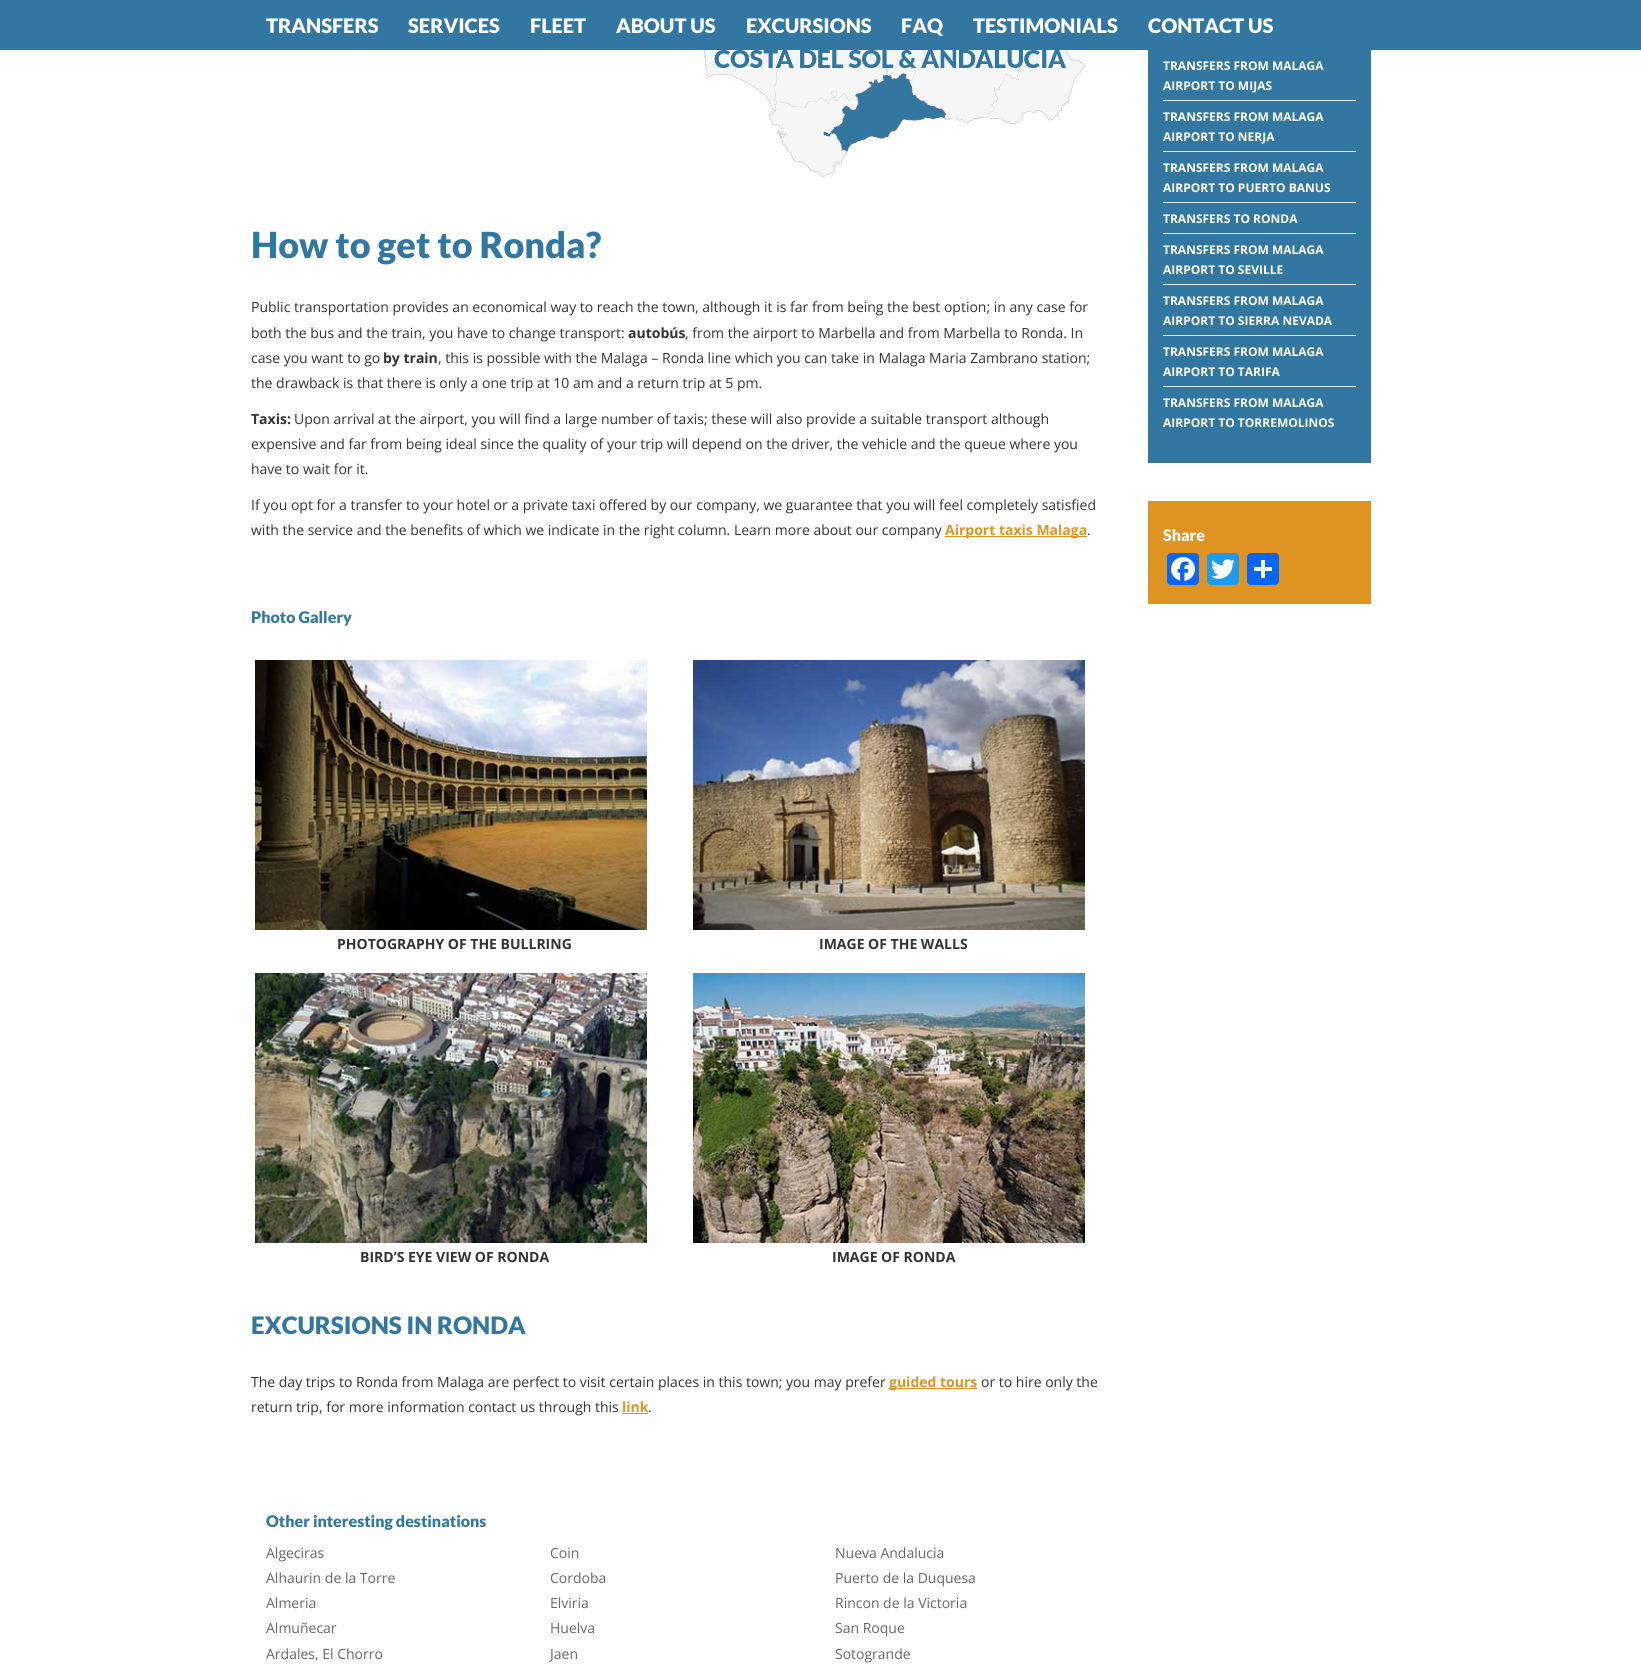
#include <cairo.h>
#include <math.h>
#include <stddef.h>

static cairo_t *ctx;

static void use_color(int r, int g, int b) {
    cairo_set_source_rgb(ctx, r / 255.0, g / 255.0, b / 255.0);
}

static void round_rect(double x, double y, double w, double h, double r) {
    cairo_new_sub_path(ctx);
    cairo_arc(ctx, x + w - r, y + h - r, r, 0, M_PI / 2);
    cairo_arc(ctx, x + r, y + h - r, r, M_PI / 2, M_PI);
    cairo_arc(ctx, x + r, y + r, r, M_PI, 1.5 * M_PI);
    cairo_arc(ctx, x + w - r, y + r, r, 1.5 * M_PI, 2 * M_PI);
    cairo_close_path(ctx);
}

static void picture(const char *path, double x, double y, double w, double h) {
    cairo_surface_t *image = cairo_image_surface_create_from_png(path);
    cairo_save(ctx);
    cairo_set_source_surface(ctx, image, x, y);
    cairo_rectangle(ctx, x, y, w, h);
    cairo_fill(ctx);
    cairo_restore(ctx);
    cairo_surface_destroy(image);
}

int main(void) {
    cairo_surface_t *surface = cairo_image_surface_create(CAIRO_FORMAT_RGB24, 1641, 1672);
    ctx = cairo_create(surface);
    cairo_font_options_t *options = cairo_font_options_create();
    cairo_font_options_set_hint_metrics(options, CAIRO_HINT_METRICS_OFF);
    cairo_font_options_set_hint_style(options, CAIRO_HINT_STYLE_NONE);
    cairo_set_font_options(ctx, options);
    cairo_set_miter_limit(ctx, 4);
    use_color(255, 255, 255);
    cairo_paint(ctx);
    use_color(50, 119, 161);
    cairo_rectangle(ctx, 0, 0, 1641, 50);
    cairo_fill(ctx);
    cairo_select_font_face(ctx, "Lato Black", CAIRO_FONT_SLANT_NORMAL, CAIRO_FONT_WEIGHT_NORMAL);
    cairo_set_font_size(ctx, 20);
    use_color(255, 255, 255);
    cairo_move_to(ctx, 266, 33);
    cairo_show_text(ctx, "TRANSFERS");
    cairo_move_to(ctx, 408, 33);
    cairo_show_text(ctx, "SERVICES");
    cairo_move_to(ctx, 530, 33);
    cairo_show_text(ctx, "FLEET");
    cairo_move_to(ctx, 616, 33);
    cairo_show_text(ctx, "ABOUT US");
    cairo_move_to(ctx, 746, 33);
    cairo_show_text(ctx, "EXCURSIONS");
    cairo_move_to(ctx, 901, 33);
    cairo_show_text(ctx, "FAQ");
    cairo_move_to(ctx, 973, 33);
    cairo_show_text(ctx, "TESTIMONIALS");
    cairo_move_to(ctx, 1148, 33);
    cairo_show_text(ctx, "CONTACT US");
    picture("img1.png", 701, 50, 385, 128);
    cairo_set_font_size(ctx, 36);
    use_color(50, 119, 161);
    cairo_move_to(ctx, 251, 258);
    cairo_show_text(ctx, "How to get to Ronda?");
    cairo_select_font_face(ctx, "Open Sans", CAIRO_FONT_SLANT_NORMAL, CAIRO_FONT_WEIGHT_NORMAL);
    cairo_set_font_size(ctx, 14);
    use_color(51, 51, 51);
    cairo_move_to(ctx, 251, 312);
    cairo_show_text(ctx, "Public transportation provides an economical way to reach the town, although it is far from being the best option; in any case for");
    cairo_move_to(ctx, 251, 338);
    cairo_show_text(ctx, "both the bus and the train, you have to change transport:");
    cairo_select_font_face(ctx, "Open Sans", CAIRO_FONT_SLANT_NORMAL, CAIRO_FONT_WEIGHT_BOLD);
    cairo_move_to(ctx, 628, 338);
    cairo_show_text(ctx, "autobús");
    cairo_select_font_face(ctx, "Open Sans", CAIRO_FONT_SLANT_NORMAL, CAIRO_FONT_WEIGHT_NORMAL);
    cairo_move_to(ctx, 685, 338);
    cairo_show_text(ctx, ", from the airport to Marbella and from Marbella to Ronda. In");
    cairo_move_to(ctx, 251, 363);
    cairo_show_text(ctx, "case you want to go");
    cairo_select_font_face(ctx, "Open Sans", CAIRO_FONT_SLANT_NORMAL, CAIRO_FONT_WEIGHT_BOLD);
    cairo_move_to(ctx, 383, 363);
    cairo_show_text(ctx, "by train");
    cairo_select_font_face(ctx, "Open Sans", CAIRO_FONT_SLANT_NORMAL, CAIRO_FONT_WEIGHT_NORMAL);
    cairo_move_to(ctx, 438, 363);
    cairo_show_text(ctx, ", this is possible with the Malaga – Ronda line which you can take in Malaga Maria Zambrano station;");
    cairo_move_to(ctx, 251, 388);
    cairo_show_text(ctx, "the drawback is that there is only a one trip at 10 am and a return trip at 5 pm.");
    cairo_select_font_face(ctx, "Open Sans", CAIRO_FONT_SLANT_NORMAL, CAIRO_FONT_WEIGHT_BOLD);
    cairo_move_to(ctx, 251, 424);
    cairo_show_text(ctx, "Taxis:");
    cairo_select_font_face(ctx, "Open Sans", CAIRO_FONT_SLANT_NORMAL, CAIRO_FONT_WEIGHT_NORMAL);
    cairo_move_to(ctx, 294, 424);
    cairo_show_text(ctx, "Upon arrival at the airport, you will find a large number of taxis; these will also provide a suitable transport although");
    cairo_move_to(ctx, 251, 449);
    cairo_show_text(ctx, "expensive and far from being ideal since the quality of your trip will depend on the driver, the vehicle and the queue where you");
    cairo_move_to(ctx, 251, 474);
    cairo_show_text(ctx, "have to wait for it.");
    cairo_move_to(ctx, 251, 510);
    cairo_show_text(ctx, "If you opt for a transfer to your hotel or a private taxi offered by our company, we guarantee that you will feel completely satisfied");
    cairo_move_to(ctx, 251, 535);
    cairo_show_text(ctx, "with the service and the benefits of which we indicate in the right column. Learn more about our company");
    use_color(223, 148, 33);
    cairo_rectangle(ctx, 945, 536, 142, 1);
    cairo_fill(ctx);
    cairo_select_font_face(ctx, "Open Sans", CAIRO_FONT_SLANT_NORMAL, CAIRO_FONT_WEIGHT_BOLD);
    cairo_move_to(ctx, 945, 535);
    cairo_show_text(ctx, "Airport taxis Malaga");
    cairo_select_font_face(ctx, "Open Sans", CAIRO_FONT_SLANT_NORMAL, CAIRO_FONT_WEIGHT_NORMAL);
    use_color(51, 51, 51);
    cairo_move_to(ctx, 1087, 535);
    cairo_show_text(ctx, ".");
    cairo_select_font_face(ctx, "Lato Black", CAIRO_FONT_SLANT_NORMAL, CAIRO_FONT_WEIGHT_NORMAL);
    cairo_set_font_size(ctx, 16);
    use_color(50, 119, 161);
    cairo_move_to(ctx, 251, 623);
    cairo_show_text(ctx, "Photo Gallery");
    picture("img2.png", 255, 660, 392, 270);
    cairo_select_font_face(ctx, "Open Sans", CAIRO_FONT_SLANT_NORMAL, CAIRO_FONT_WEIGHT_BOLD);
    cairo_set_font_size(ctx, 14);
    use_color(51, 51, 51);
    cairo_move_to(ctx, 337, 949);
    cairo_show_text(ctx, "PHOTOGRAPHY OF THE BULLRING");
    picture("img3.png", 693, 660, 392, 270);
    cairo_move_to(ctx, 819, 949);
    cairo_show_text(ctx, "IMAGE OF THE WALLS");
    picture("img4.png", 255, 973, 392, 270);
    cairo_move_to(ctx, 360, 1262);
    cairo_show_text(ctx, "BIRD’S EYE VIEW OF RONDA");
    picture("img5.png", 693, 973, 392, 270);
    cairo_move_to(ctx, 832, 1262);
    cairo_show_text(ctx, "IMAGE OF RONDA");
    cairo_select_font_face(ctx, "Lato Black", CAIRO_FONT_SLANT_NORMAL, CAIRO_FONT_WEIGHT_NORMAL);
    cairo_set_font_size(ctx, 24);
    use_color(50, 119, 161);
    cairo_move_to(ctx, 251, 1334);
    cairo_show_text(ctx, "EXCURSIONS IN RONDA");
    cairo_select_font_face(ctx, "Open Sans", CAIRO_FONT_SLANT_NORMAL, CAIRO_FONT_WEIGHT_NORMAL);
    cairo_set_font_size(ctx, 14);
    use_color(51, 51, 51);
    cairo_move_to(ctx, 251, 1387);
    cairo_show_text(ctx, "The day trips to Ronda from Malaga are perfect to visit certain places in this town; you may prefer");
    use_color(223, 148, 33);
    cairo_rectangle(ctx, 889, 1388, 88, 1);
    cairo_fill(ctx);
    cairo_select_font_face(ctx, "Open Sans", CAIRO_FONT_SLANT_NORMAL, CAIRO_FONT_WEIGHT_BOLD);
    cairo_move_to(ctx, 889, 1387);
    cairo_show_text(ctx, "guided tours");
    cairo_select_font_face(ctx, "Open Sans", CAIRO_FONT_SLANT_NORMAL, CAIRO_FONT_WEIGHT_NORMAL);
    use_color(51, 51, 51);
    cairo_move_to(ctx, 981, 1387);
    cairo_show_text(ctx, "or to hire only the");
    cairo_move_to(ctx, 251, 1412);
    cairo_show_text(ctx, "return trip, for more information contact us through this");
    cairo_select_font_face(ctx, "Open Sans", CAIRO_FONT_SLANT_NORMAL, CAIRO_FONT_WEIGHT_BOLD);
    use_color(223, 148, 33);
    cairo_move_to(ctx, 622, 1412);
    cairo_show_text(ctx, "link");
    cairo_rectangle(ctx, 622, 1413, 26, 1);
    cairo_fill(ctx);
    cairo_select_font_face(ctx, "Open Sans", CAIRO_FONT_SLANT_NORMAL, CAIRO_FONT_WEIGHT_NORMAL);
    use_color(51, 51, 51);
    cairo_move_to(ctx, 648, 1412);
    cairo_show_text(ctx, ".");
    use_color(50, 119, 161);
    cairo_rectangle(ctx, 1148, 50, 223, 413);
    cairo_fill(ctx);
    use_color(230, 230, 230);
    cairo_rectangle(ctx, 1163, 100, 193, 1);
    cairo_fill(ctx);
    cairo_select_font_face(ctx, "Open Sans", CAIRO_FONT_SLANT_NORMAL, CAIRO_FONT_WEIGHT_BOLD);
    cairo_set_font_size(ctx, 12);
    use_color(255, 255, 255);
    cairo_move_to(ctx, 1163, 70);
    cairo_show_text(ctx, "TRANSFERS FROM MALAGA");
    cairo_move_to(ctx, 1163, 90);
    cairo_show_text(ctx, "AIRPORT TO MIJAS");
    use_color(230, 230, 230);
    cairo_rectangle(ctx, 1163, 151, 193, 1);
    cairo_fill(ctx);
    use_color(255, 255, 255);
    cairo_move_to(ctx, 1163, 121);
    cairo_show_text(ctx, "TRANSFERS FROM MALAGA");
    cairo_move_to(ctx, 1163, 141);
    cairo_show_text(ctx, "AIRPORT TO NERJA");
    use_color(230, 230, 230);
    cairo_rectangle(ctx, 1163, 202, 193, 1);
    cairo_fill(ctx);
    use_color(255, 255, 255);
    cairo_move_to(ctx, 1163, 172);
    cairo_show_text(ctx, "TRANSFERS FROM MALAGA");
    cairo_move_to(ctx, 1163, 192);
    cairo_show_text(ctx, "AIRPORT TO PUERTO BANUS");
    use_color(230, 230, 230);
    cairo_rectangle(ctx, 1163, 233, 193, 1);
    cairo_fill(ctx);
    use_color(255, 255, 255);
    cairo_move_to(ctx, 1163, 223);
    cairo_show_text(ctx, "TRANSFERS TO RONDA");
    use_color(230, 230, 230);
    cairo_rectangle(ctx, 1163, 284, 193, 1);
    cairo_fill(ctx);
    use_color(255, 255, 255);
    cairo_move_to(ctx, 1163, 254);
    cairo_show_text(ctx, "TRANSFERS FROM MALAGA");
    cairo_move_to(ctx, 1163, 274);
    cairo_show_text(ctx, "AIRPORT TO SEVILLE");
    use_color(230, 230, 230);
    cairo_rectangle(ctx, 1163, 335, 193, 1);
    cairo_fill(ctx);
    use_color(255, 255, 255);
    cairo_move_to(ctx, 1163, 305);
    cairo_show_text(ctx, "TRANSFERS FROM MALAGA");
    cairo_move_to(ctx, 1163, 325);
    cairo_show_text(ctx, "AIRPORT TO SIERRA NEVADA");
    use_color(230, 230, 230);
    cairo_rectangle(ctx, 1163, 386, 193, 1);
    cairo_fill(ctx);
    use_color(255, 255, 255);
    cairo_move_to(ctx, 1163, 356);
    cairo_show_text(ctx, "TRANSFERS FROM MALAGA");
    cairo_move_to(ctx, 1163, 376);
    cairo_show_text(ctx, "AIRPORT TO TARIFA");
    cairo_move_to(ctx, 1163, 407);
    cairo_show_text(ctx, "TRANSFERS FROM MALAGA");
    cairo_move_to(ctx, 1163, 427);
    cairo_show_text(ctx, "AIRPORT TO TORREMOLINOS");
    use_color(223, 148, 33);
    cairo_rectangle(ctx, 1148, 501, 223, 103);
    cairo_fill(ctx);
    cairo_select_font_face(ctx, "Lato Black", CAIRO_FONT_SLANT_NORMAL, CAIRO_FONT_WEIGHT_NORMAL);
    cairo_set_font_size(ctx, 16);
    use_color(255, 255, 255);
    cairo_move_to(ctx, 1163, 541);
    cairo_show_text(ctx, "Share");
    use_color(8, 102, 255);
    round_rect(1167, 553, 32, 32, 4);
    cairo_fill(ctx);
    picture("img6.png", 1171, 557, 24, 24);
    use_color(29, 155, 240);
    round_rect(1207, 553, 32, 32, 4);
    cairo_fill(ctx);
    picture("img7.png", 1211, 559, 24, 20);
    use_color(1, 102, 255);
    round_rect(1247, 553, 32, 32, 4);
    cairo_fill(ctx);
    use_color(255, 255, 255);
    cairo_rectangle(ctx, 1261, 560, 4, 18);
    cairo_fill(ctx);
    cairo_rectangle(ctx, 1254, 567, 18, 4);
    cairo_fill(ctx);
    use_color(50, 119, 161);
    cairo_move_to(ctx, 266, 1527);
    cairo_show_text(ctx, "Other interesting destinations");
    cairo_select_font_face(ctx, "Open Sans", CAIRO_FONT_SLANT_NORMAL, CAIRO_FONT_WEIGHT_NORMAL);
    cairo_set_font_size(ctx, 14);
    use_color(102, 102, 102);
    cairo_move_to(ctx, 266, 1558);
    cairo_show_text(ctx, "Algeciras");
    cairo_move_to(ctx, 266, 1583);
    cairo_show_text(ctx, "Alhaurin de la Torre");
    cairo_move_to(ctx, 266, 1608);
    cairo_show_text(ctx, "Almeria");
    cairo_move_to(ctx, 266, 1633);
    cairo_show_text(ctx, "Almuñecar");
    cairo_move_to(ctx, 266, 1659);
    cairo_show_text(ctx, "Ardales, El Chorro");
    cairo_move_to(ctx, 550, 1558);
    cairo_show_text(ctx, "Coin");
    cairo_move_to(ctx, 550, 1583);
    cairo_show_text(ctx, "Cordoba");
    cairo_move_to(ctx, 550, 1608);
    cairo_show_text(ctx, "Elviria");
    cairo_move_to(ctx, 550, 1633);
    cairo_show_text(ctx, "Huelva");
    cairo_move_to(ctx, 550, 1659);
    cairo_show_text(ctx, "Jaen");
    cairo_move_to(ctx, 835, 1558);
    cairo_show_text(ctx, "Nueva Andalucia");
    cairo_move_to(ctx, 835, 1583);
    cairo_show_text(ctx, "Puerto de la Duquesa");
    cairo_move_to(ctx, 835, 1608);
    cairo_show_text(ctx, "Rincon de la Victoria");
    cairo_move_to(ctx, 835, 1633);
    cairo_show_text(ctx, "San Roque");
    cairo_move_to(ctx, 835, 1659);
    cairo_show_text(ctx, "Sotogrande");
    cairo_surface_write_to_png(surface, "result.png");
    cairo_font_options_destroy(options);
    cairo_destroy(ctx);
    cairo_surface_destroy(surface);
    return 0;
}
